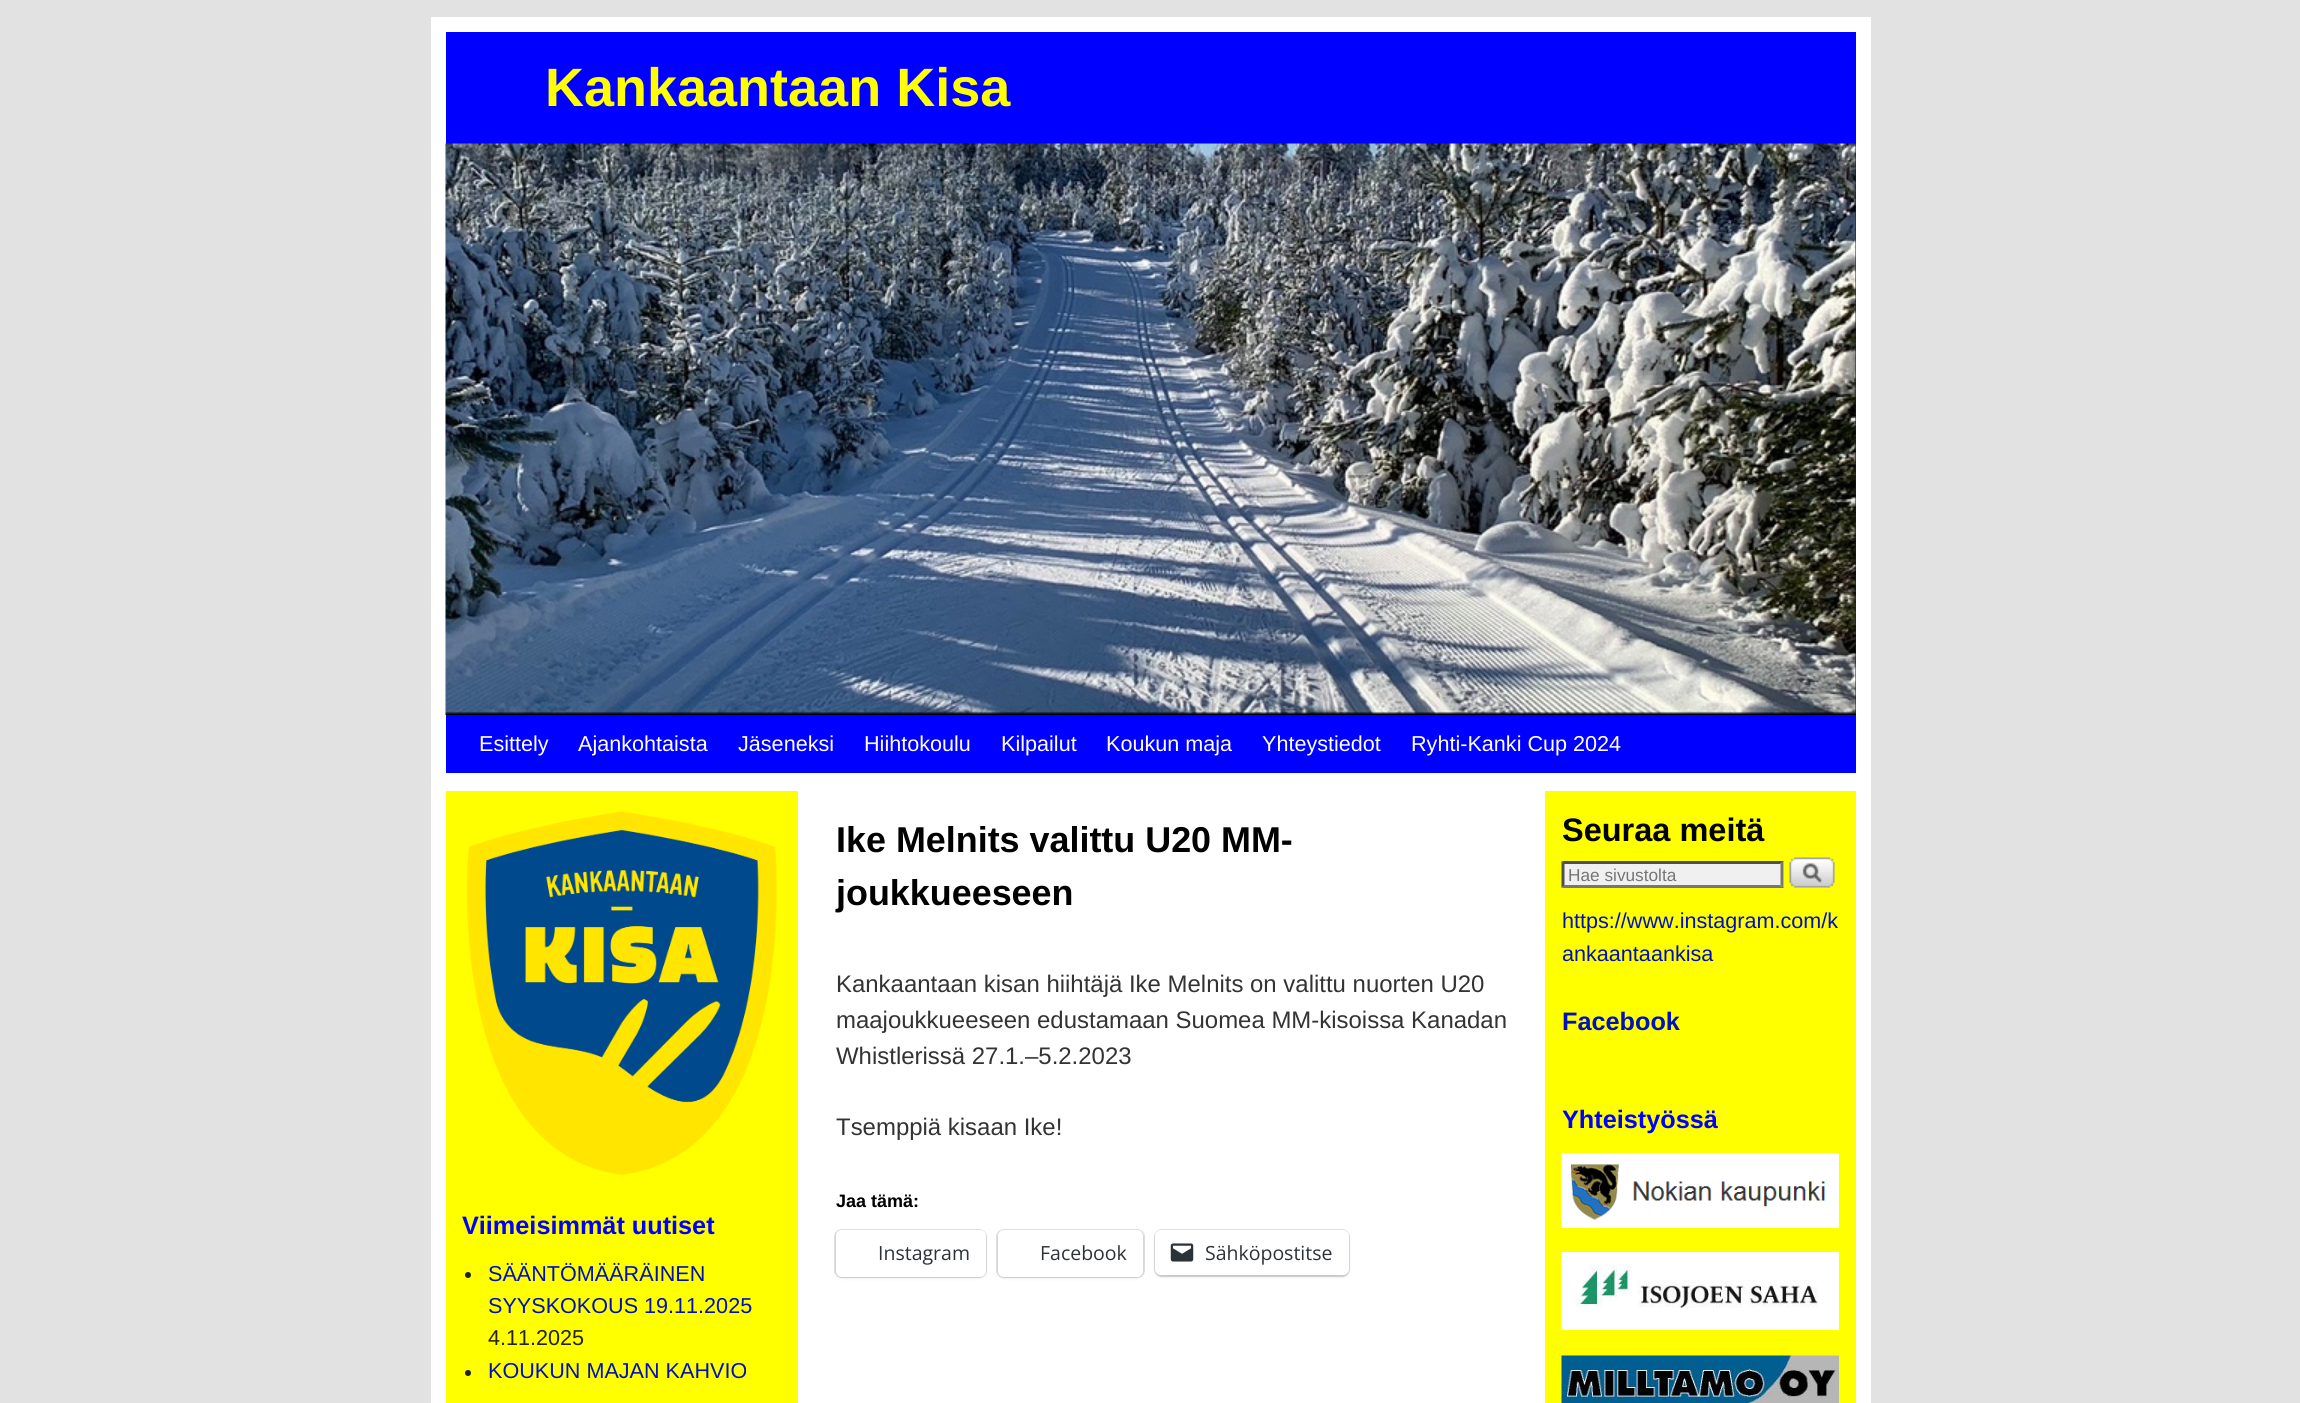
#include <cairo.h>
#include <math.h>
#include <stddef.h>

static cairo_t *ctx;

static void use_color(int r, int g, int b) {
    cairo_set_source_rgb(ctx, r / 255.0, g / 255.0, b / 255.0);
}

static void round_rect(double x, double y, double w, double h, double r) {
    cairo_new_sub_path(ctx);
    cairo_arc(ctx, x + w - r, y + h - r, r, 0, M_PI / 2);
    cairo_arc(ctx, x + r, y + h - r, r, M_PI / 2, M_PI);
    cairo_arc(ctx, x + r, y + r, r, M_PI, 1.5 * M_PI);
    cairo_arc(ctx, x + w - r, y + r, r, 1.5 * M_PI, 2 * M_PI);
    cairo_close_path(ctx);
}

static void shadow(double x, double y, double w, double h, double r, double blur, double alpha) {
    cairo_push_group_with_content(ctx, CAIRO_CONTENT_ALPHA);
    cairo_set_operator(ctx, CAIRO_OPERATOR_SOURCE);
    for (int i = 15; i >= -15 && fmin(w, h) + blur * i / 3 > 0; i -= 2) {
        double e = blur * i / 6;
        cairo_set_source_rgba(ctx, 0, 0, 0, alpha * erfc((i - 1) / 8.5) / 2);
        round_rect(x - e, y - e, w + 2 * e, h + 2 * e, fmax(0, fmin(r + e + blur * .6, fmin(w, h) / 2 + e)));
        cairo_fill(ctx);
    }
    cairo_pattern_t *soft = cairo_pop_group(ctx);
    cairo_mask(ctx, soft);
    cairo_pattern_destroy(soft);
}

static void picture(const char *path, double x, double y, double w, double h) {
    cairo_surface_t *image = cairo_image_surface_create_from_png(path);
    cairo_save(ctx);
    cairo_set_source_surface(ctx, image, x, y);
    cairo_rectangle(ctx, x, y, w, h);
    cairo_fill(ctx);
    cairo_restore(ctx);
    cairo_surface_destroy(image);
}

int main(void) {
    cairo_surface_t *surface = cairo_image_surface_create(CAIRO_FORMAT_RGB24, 2300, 1403);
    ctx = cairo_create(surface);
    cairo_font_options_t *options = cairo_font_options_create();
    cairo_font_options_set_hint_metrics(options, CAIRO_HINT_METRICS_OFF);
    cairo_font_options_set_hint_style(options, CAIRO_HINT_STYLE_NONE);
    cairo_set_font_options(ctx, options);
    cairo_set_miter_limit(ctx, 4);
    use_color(226, 226, 226);
    cairo_paint(ctx);
    use_color(255, 255, 255);
    cairo_rectangle(ctx, 431, 17, 1440, 1386);
    cairo_fill(ctx);
    use_color(0, 0, 255);
    cairo_rectangle(ctx, 446, 32, 1410, 741);
    cairo_fill(ctx);
    cairo_select_font_face(ctx, "Liberation Sans", CAIRO_FONT_SLANT_NORMAL, CAIRO_FONT_WEIGHT_BOLD);
    cairo_set_font_size(ctx, 54);
    use_color(255, 255, 0);
    cairo_move_to(ctx, 545, 106);
    cairo_show_text(ctx, "Kankaantaan Kisa");
    picture("img1.png", 445, 143, 1411, 572);
    cairo_select_font_face(ctx, "Liberation Sans", CAIRO_FONT_SLANT_NORMAL, CAIRO_FONT_WEIGHT_NORMAL);
    cairo_set_font_size(ctx, 21.6);
    use_color(255, 255, 255);
    cairo_move_to(ctx, 479, 751);
    cairo_show_text(ctx, "Esittely");
    cairo_move_to(ctx, 578, 751);
    cairo_show_text(ctx, "Ajankohtaista");
    cairo_move_to(ctx, 738, 751);
    cairo_show_text(ctx, "Jäseneksi");
    cairo_move_to(ctx, 864, 751);
    cairo_show_text(ctx, "Hiihtokoulu");
    cairo_move_to(ctx, 1001, 751);
    cairo_show_text(ctx, "Kilpailut");
    cairo_move_to(ctx, 1106, 751);
    cairo_show_text(ctx, "Koukun maja");
    cairo_move_to(ctx, 1262, 751);
    cairo_show_text(ctx, "Yhteystiedot");
    cairo_move_to(ctx, 1411, 751);
    cairo_show_text(ctx, "Ryhti-Kanki Cup 2024");
    cairo_select_font_face(ctx, "Liberation Sans", CAIRO_FONT_SLANT_NORMAL, CAIRO_FONT_WEIGHT_BOLD);
    cairo_set_font_size(ctx, 35.9);
    use_color(0, 0, 0);
    cairo_move_to(ctx, 836, 852);
    cairo_show_text(ctx, "Ike Melnits valittu U20 MM-");
    cairo_move_to(ctx, 836, 905);
    cairo_show_text(ctx, "joukkueeseen");
    cairo_select_font_face(ctx, "Liberation Sans", CAIRO_FONT_SLANT_NORMAL, CAIRO_FONT_WEIGHT_NORMAL);
    cairo_set_font_size(ctx, 23.95);
    use_color(51, 51, 51);
    cairo_move_to(ctx, 836, 992);
    cairo_show_text(ctx, "Kankaantaan kisan hiihtäjä Ike Melnits on valittu nuorten U20");
    cairo_move_to(ctx, 836, 1028);
    cairo_show_text(ctx, "maajoukkueeseen edustamaan Suomea MM-kisoissa Kanadan");
    cairo_move_to(ctx, 836, 1064);
    cairo_show_text(ctx, "Whistlerissä 27.1.–5.2.2023");
    cairo_move_to(ctx, 836, 1135);
    cairo_show_text(ctx, "Tsemppiä kisaan Ike!");
    cairo_select_font_face(ctx, "Liberation Sans", CAIRO_FONT_SLANT_NORMAL, CAIRO_FONT_WEIGHT_BOLD);
    cairo_set_font_size(ctx, 18);
    use_color(0, 0, 0);
    cairo_move_to(ctx, 836, 1207);
    cairo_show_text(ctx, "Jaa tämä:");
    round_rect(835, 1230, 151, 47, 7);
    use_color(224, 224, 224);
    cairo_stroke(ctx);
    use_color(0, 0, 0);
    shadow(836, 1232, 150, 46, 6, 1.5, 0.12);
    use_color(255, 255, 255);
    round_rect(836, 1230, 150, 47, 6);
    cairo_fill(ctx);
    cairo_select_font_face(ctx, "Open Sans", CAIRO_FONT_SLANT_NORMAL, CAIRO_FONT_WEIGHT_NORMAL);
    cairo_set_font_size(ctx, 19.5);
    use_color(44, 51, 56);
    cairo_move_to(ctx, 878, 1260);
    cairo_show_text(ctx, "Instagram");
    round_rect(997, 1230, 147, 47, 7);
    use_color(224, 224, 224);
    cairo_stroke(ctx);
    use_color(0, 0, 0);
    shadow(998, 1232, 145, 46, 6, 1.5, 0.12);
    use_color(255, 255, 255);
    round_rect(998, 1230, 145, 47, 6);
    cairo_fill(ctx);
    use_color(44, 51, 56);
    cairo_move_to(ctx, 1040, 1260);
    cairo_show_text(ctx, "Facebook");
    round_rect(1155, 1230, 194, 46, 7);
    use_color(224, 224, 224);
    cairo_stroke(ctx);
    use_color(0, 0, 0);
    shadow(1155, 1232, 194, 45, 6, 1.5, 0.12);
    use_color(255, 255, 255);
    round_rect(1155, 1230, 194, 45, 6);
    cairo_fill(ctx);
    picture("img2.png", 1170, 1243, 24, 19);
    use_color(44, 51, 56);
    cairo_move_to(ctx, 1205, 1260);
    cairo_show_text(ctx, "Sähköpostitse");
    use_color(255, 255, 0);
    cairo_rectangle(ctx, 1545, 791, 311, 612);
    cairo_fill(ctx);
    cairo_select_font_face(ctx, "Liberation Sans", CAIRO_FONT_SLANT_NORMAL, CAIRO_FONT_WEIGHT_BOLD);
    cairo_set_font_size(ctx, 32.5);
    use_color(0, 0, 0);
    cairo_move_to(ctx, 1562, 841);
    cairo_show_text(ctx, "Seuraa meitä");
    use_color(240, 240, 240);
    cairo_rectangle(ctx, 1562, 861, 222, 27);
    cairo_fill(ctx);
    use_color(79, 79, 79);
    cairo_new_path(ctx);
    cairo_move_to(ctx, 1562, 861);
    cairo_line_to(ctx, 1784, 861);
    cairo_line_to(ctx, 1780, 864);
    cairo_line_to(ctx, 1564, 864);
    cairo_close_path(ctx);
    cairo_fill(ctx);
    use_color(118, 118, 118);
    cairo_new_path(ctx);
    cairo_move_to(ctx, 1783.5, 861);
    cairo_line_to(ctx, 1783.5, 888);
    cairo_line_to(ctx, 1780.5, 885);
    cairo_line_to(ctx, 1780.5, 864);
    cairo_close_path(ctx);
    cairo_fill(ctx);
    cairo_new_path(ctx);
    cairo_move_to(ctx, 1784, 888);
    cairo_line_to(ctx, 1562, 888);
    cairo_line_to(ctx, 1564, 885);
    cairo_line_to(ctx, 1780, 885);
    cairo_close_path(ctx);
    cairo_fill(ctx);
    use_color(79, 79, 79);
    cairo_new_path(ctx);
    cairo_move_to(ctx, 1561.5, 888);
    cairo_line_to(ctx, 1561.5, 861);
    cairo_line_to(ctx, 1564.5, 864);
    cairo_line_to(ctx, 1564.5, 885);
    cairo_close_path(ctx);
    cairo_fill(ctx);
    cairo_select_font_face(ctx, "Liberation Sans", CAIRO_FONT_SLANT_NORMAL, CAIRO_FONT_WEIGHT_NORMAL);
    cairo_set_font_size(ctx, 17.25);
    use_color(117, 117, 117);
    cairo_move_to(ctx, 1568, 881);
    cairo_show_text(ctx, "Hae sivustolta");
    picture("img3.png", 1789, 857, 46, 31);
    cairo_set_font_size(ctx, 21.6);
    use_color(0, 17, 187);
    cairo_move_to(ctx, 1562, 928);
    cairo_show_text(ctx, "https://www.instagram.com/k");
    cairo_move_to(ctx, 1562, 961);
    cairo_show_text(ctx, "ankaantaankisa");
    cairo_select_font_face(ctx, "Liberation Sans", CAIRO_FONT_SLANT_NORMAL, CAIRO_FONT_WEIGHT_BOLD);
    cairo_set_font_size(ctx, 25.25);
    cairo_move_to(ctx, 1562, 1030);
    cairo_show_text(ctx, "Facebook");
    use_color(0, 0, 255);
    cairo_move_to(ctx, 1562, 1128);
    cairo_show_text(ctx, "Yhteistyössä");
    picture("img4.png", 1561, 1153, 278, 75);
    picture("img5.png", 1561, 1252, 278, 78);
    picture("img6.png", 1561, 1355, 278, 48);
    use_color(255, 255, 0);
    cairo_rectangle(ctx, 446, 791, 352, 612);
    cairo_fill(ctx);
    picture("img7.png", 467, 811, 310, 364);
    use_color(0, 0, 255);
    cairo_move_to(ctx, 462, 1234);
    cairo_show_text(ctx, "Viimeisimmät uutiset");
    use_color(34, 34, 34);
    cairo_new_path(ctx);
    cairo_arc(ctx, 468, 1275, 3, 0, 2 * M_PI);
    cairo_fill(ctx);
    cairo_select_font_face(ctx, "Liberation Sans", CAIRO_FONT_SLANT_NORMAL, CAIRO_FONT_WEIGHT_NORMAL);
    cairo_set_font_size(ctx, 21.6);
    use_color(0, 17, 187);
    cairo_move_to(ctx, 488, 1281);
    cairo_show_text(ctx, "SÄÄNTÖMÄÄRÄINEN");
    cairo_move_to(ctx, 488, 1313);
    cairo_show_text(ctx, "SYYSKOKOUS 19.11.2025");
    use_color(34, 34, 34);
    cairo_move_to(ctx, 488, 1345);
    cairo_show_text(ctx, "4.11.2025");
    cairo_new_path(ctx);
    cairo_arc(ctx, 468, 1373, 3, 0, 2 * M_PI);
    cairo_fill(ctx);
    use_color(0, 17, 187);
    cairo_move_to(ctx, 488, 1378);
    cairo_show_text(ctx, "KOUKUN MAJAN KAHVIO");
    cairo_surface_write_to_png(surface, "result.png");
    cairo_font_options_destroy(options);
    cairo_destroy(ctx);
    cairo_surface_destroy(surface);
    return 0;
}
